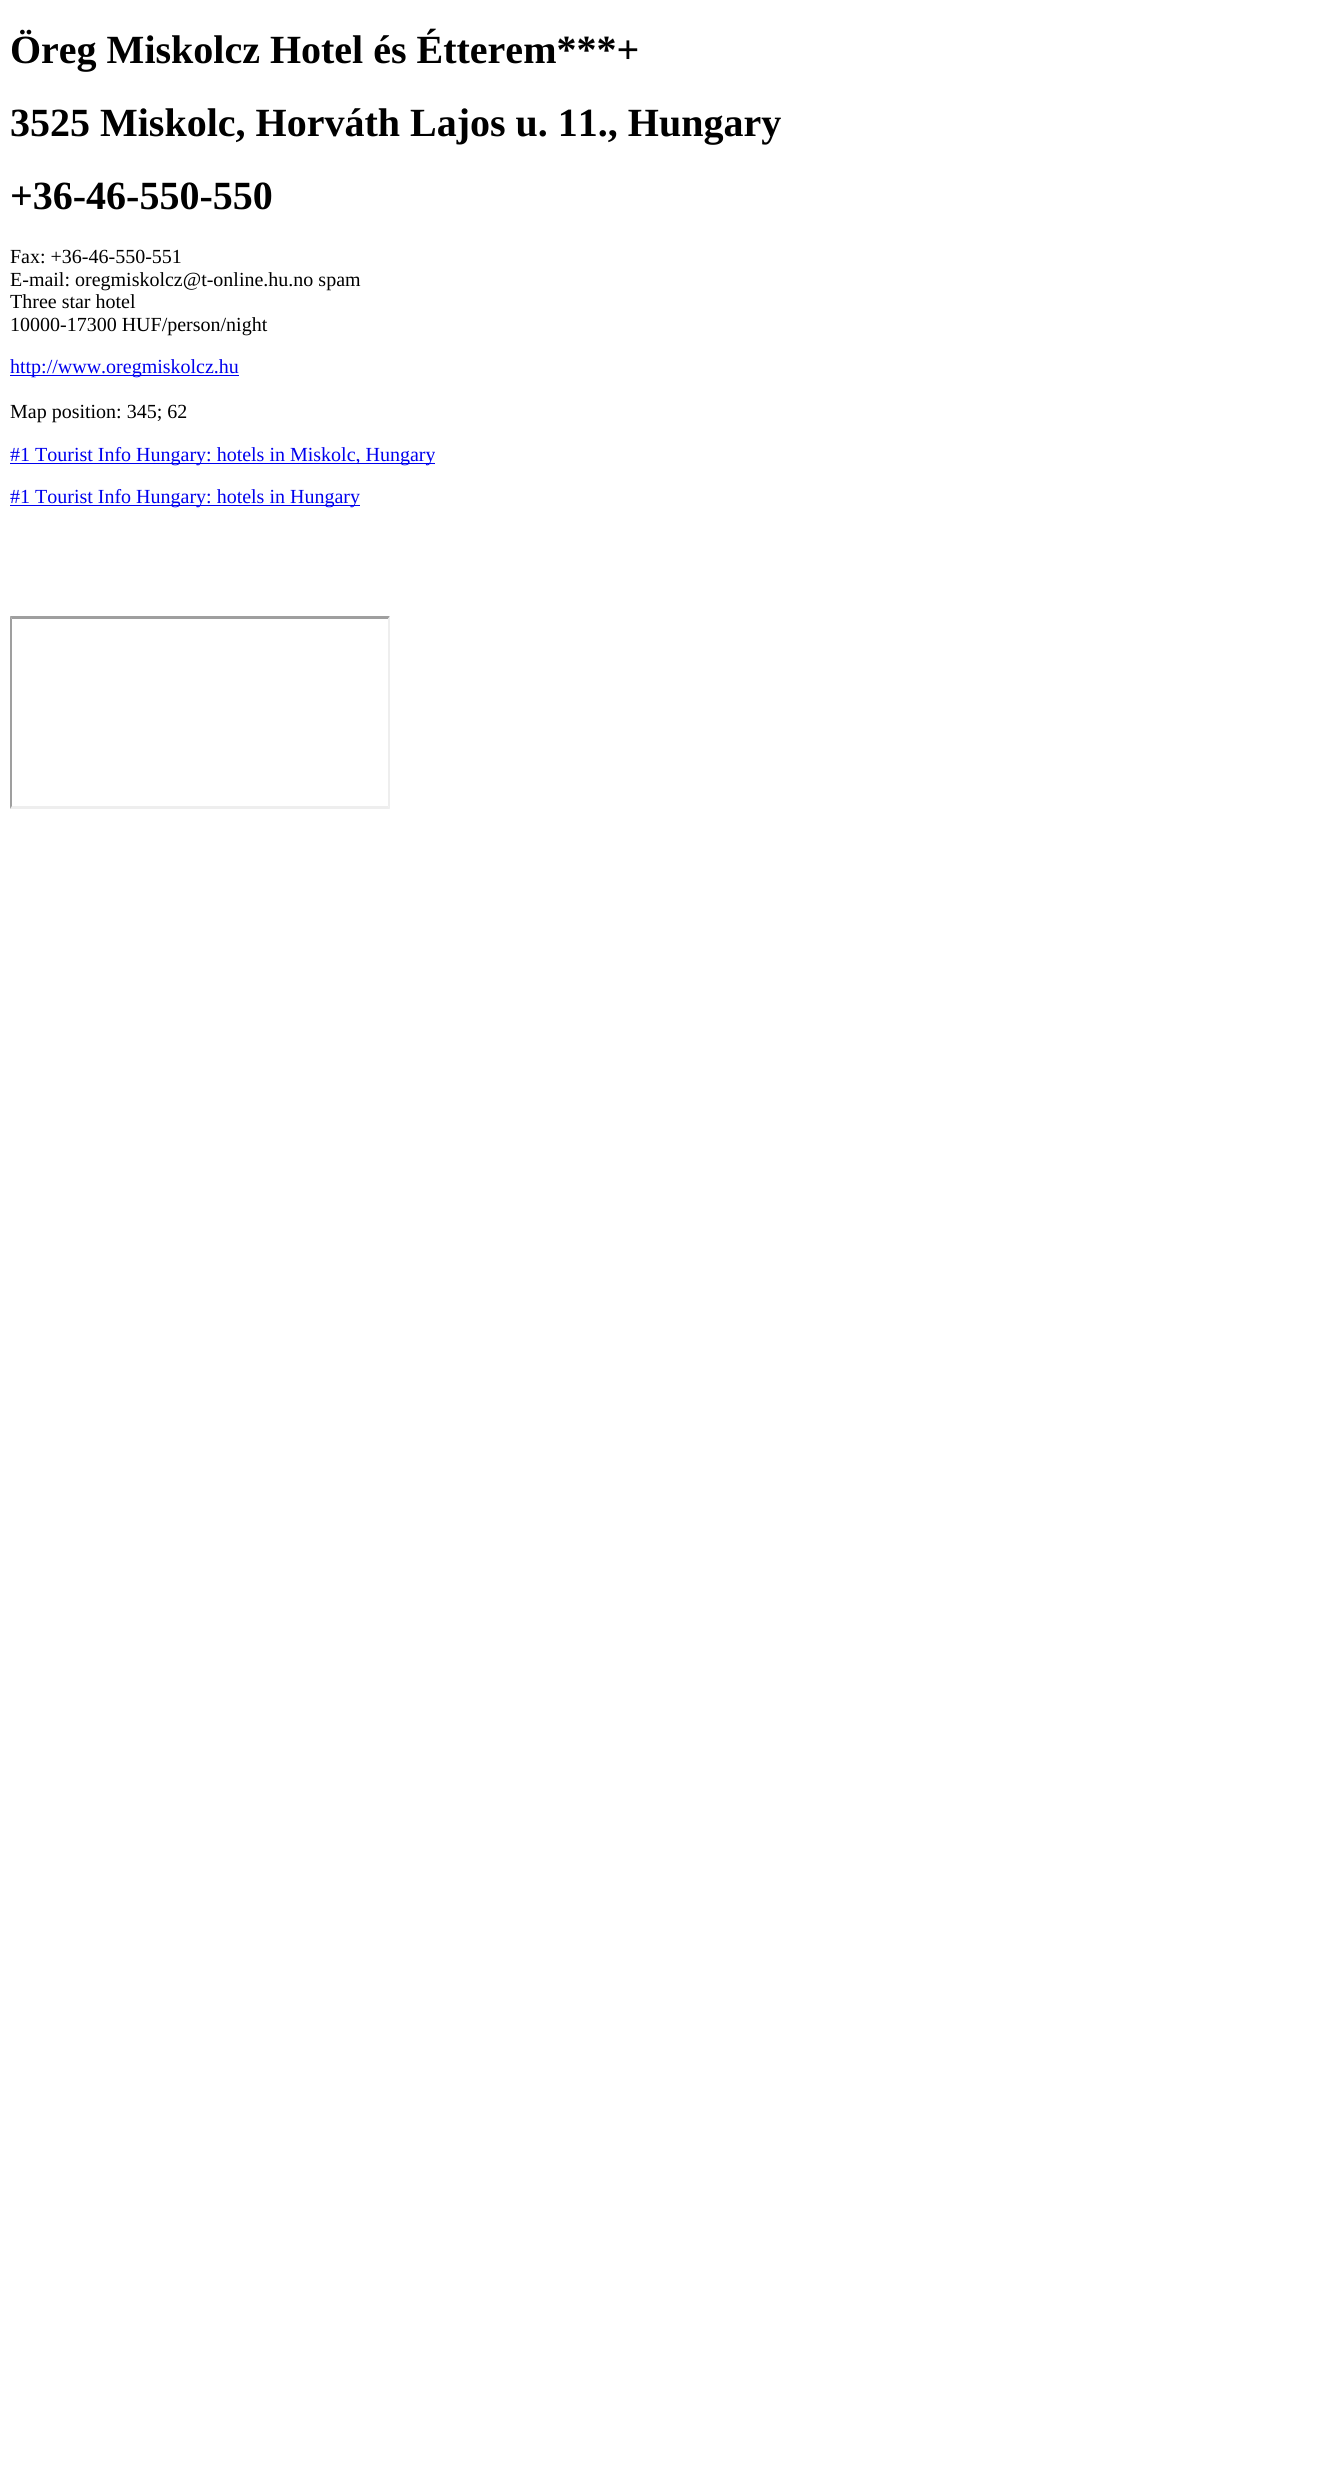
#include <cairo.h>
#include <math.h>
#include <stddef.h>

static cairo_t *ctx;

static void use_color(int r, int g, int b) {
    cairo_set_source_rgb(ctx, r / 255.0, g / 255.0, b / 255.0);
}

int main(void) {
    cairo_surface_t *surface = cairo_image_surface_create(CAIRO_FORMAT_RGB24, 1327, 2481);
    ctx = cairo_create(surface);
    cairo_font_options_t *options = cairo_font_options_create();
    cairo_font_options_set_hint_metrics(options, CAIRO_HINT_METRICS_OFF);
    cairo_font_options_set_hint_style(options, CAIRO_HINT_STYLE_NONE);
    cairo_set_font_options(ctx, options);
    cairo_set_miter_limit(ctx, 4);
    use_color(255, 255, 255);
    cairo_paint(ctx);
    cairo_select_font_face(ctx, "Liberation Serif", CAIRO_FONT_SLANT_NORMAL, CAIRO_FONT_WEIGHT_BOLD);
    cairo_set_font_size(ctx, 40);
    use_color(0, 0, 0);
    cairo_move_to(ctx, 10, 63);
    cairo_show_text(ctx, "Öreg Miskolcz Hotel és Étterem***+");
    cairo_move_to(ctx, 10, 136);
    cairo_show_text(ctx, "3525 Miskolc, Horváth Lajos u. 11., Hungary");
    cairo_move_to(ctx, 10, 209);
    cairo_show_text(ctx, "+36-46-550-550");
    cairo_select_font_face(ctx, "Liberation Serif", CAIRO_FONT_SLANT_NORMAL, CAIRO_FONT_WEIGHT_NORMAL);
    cairo_set_font_size(ctx, 20);
    cairo_move_to(ctx, 10, 263);
    cairo_show_text(ctx, "Fax: +36-46-550-551");
    cairo_move_to(ctx, 10, 286);
    cairo_show_text(ctx, "E-mail: oregmiskolcz@t-online.hu.no spam");
    cairo_move_to(ctx, 10, 308);
    cairo_show_text(ctx, "Three star hotel");
    cairo_move_to(ctx, 10, 331);
    cairo_show_text(ctx, "10000-17300 HUF/person/night");
    use_color(0, 0, 238);
    cairo_rectangle(ctx, 10, 375, 229, 1);
    cairo_fill(ctx);
    cairo_move_to(ctx, 10, 373);
    cairo_show_text(ctx, "http://www.oregmiskolcz.hu");
    use_color(0, 0, 0);
    cairo_move_to(ctx, 10, 418);
    cairo_show_text(ctx, "Map position: 345; 62");
    use_color(0, 0, 238);
    cairo_rectangle(ctx, 10, 463, 425, 1);
    cairo_fill(ctx);
    cairo_move_to(ctx, 10, 461);
    cairo_show_text(ctx, "#1 Tourist Info Hungary: hotels in Miskolc, Hungary");
    cairo_rectangle(ctx, 10, 505, 350, 1);
    cairo_fill(ctx);
    cairo_move_to(ctx, 10, 503);
    cairo_show_text(ctx, "#1 Tourist Info Hungary: hotels in Hungary");
    use_color(159, 159, 159);
    cairo_new_path(ctx);
    cairo_move_to(ctx, 10, 616);
    cairo_line_to(ctx, 390, 616);
    cairo_line_to(ctx, 388, 619);
    cairo_line_to(ctx, 12, 619);
    cairo_close_path(ctx);
    cairo_fill(ctx);
    use_color(238, 238, 238);
    cairo_new_path(ctx);
    cairo_move_to(ctx, 390, 616);
    cairo_line_to(ctx, 390, 809);
    cairo_line_to(ctx, 388, 806);
    cairo_line_to(ctx, 388, 619);
    cairo_close_path(ctx);
    cairo_fill(ctx);
    cairo_new_path(ctx);
    cairo_move_to(ctx, 390, 809);
    cairo_line_to(ctx, 10, 809);
    cairo_line_to(ctx, 12, 806);
    cairo_line_to(ctx, 388, 806);
    cairo_close_path(ctx);
    cairo_fill(ctx);
    use_color(159, 159, 159);
    cairo_new_path(ctx);
    cairo_move_to(ctx, 10, 809);
    cairo_line_to(ctx, 10, 616);
    cairo_line_to(ctx, 12, 619);
    cairo_line_to(ctx, 12, 806);
    cairo_close_path(ctx);
    cairo_fill(ctx);
    cairo_surface_write_to_png(surface, "result.png");
    cairo_font_options_destroy(options);
    cairo_destroy(ctx);
    cairo_surface_destroy(surface);
    return 0;
}
